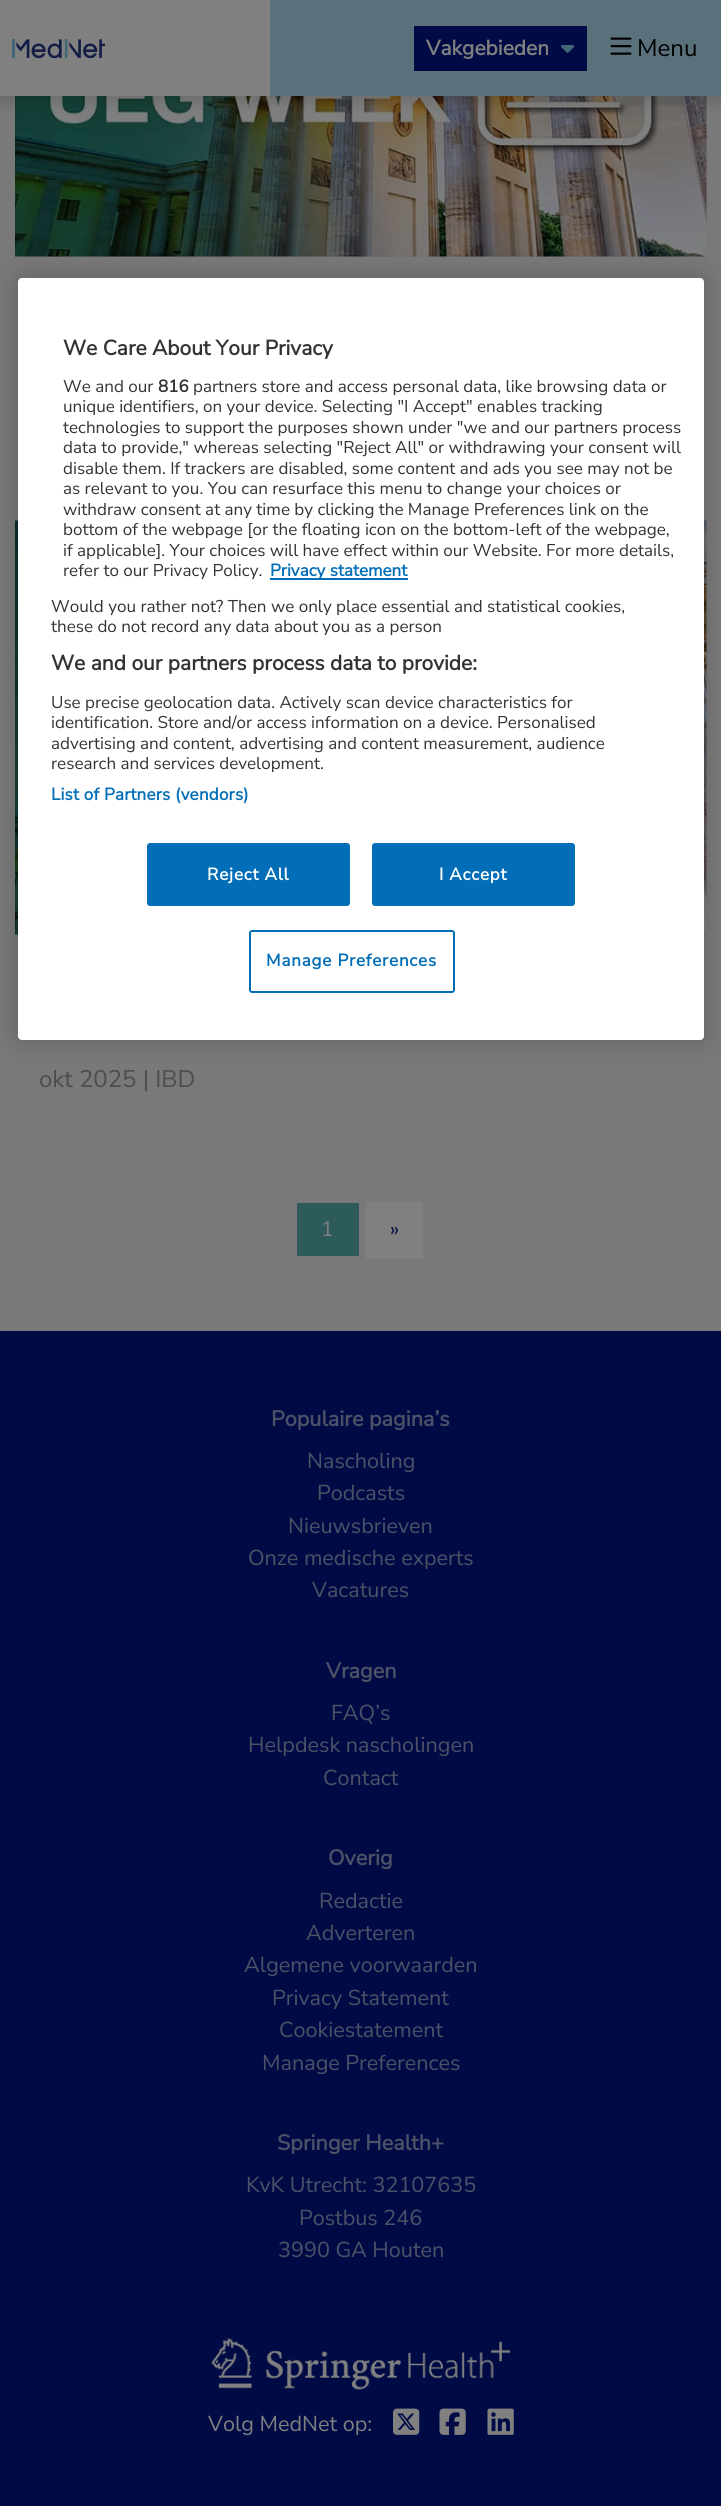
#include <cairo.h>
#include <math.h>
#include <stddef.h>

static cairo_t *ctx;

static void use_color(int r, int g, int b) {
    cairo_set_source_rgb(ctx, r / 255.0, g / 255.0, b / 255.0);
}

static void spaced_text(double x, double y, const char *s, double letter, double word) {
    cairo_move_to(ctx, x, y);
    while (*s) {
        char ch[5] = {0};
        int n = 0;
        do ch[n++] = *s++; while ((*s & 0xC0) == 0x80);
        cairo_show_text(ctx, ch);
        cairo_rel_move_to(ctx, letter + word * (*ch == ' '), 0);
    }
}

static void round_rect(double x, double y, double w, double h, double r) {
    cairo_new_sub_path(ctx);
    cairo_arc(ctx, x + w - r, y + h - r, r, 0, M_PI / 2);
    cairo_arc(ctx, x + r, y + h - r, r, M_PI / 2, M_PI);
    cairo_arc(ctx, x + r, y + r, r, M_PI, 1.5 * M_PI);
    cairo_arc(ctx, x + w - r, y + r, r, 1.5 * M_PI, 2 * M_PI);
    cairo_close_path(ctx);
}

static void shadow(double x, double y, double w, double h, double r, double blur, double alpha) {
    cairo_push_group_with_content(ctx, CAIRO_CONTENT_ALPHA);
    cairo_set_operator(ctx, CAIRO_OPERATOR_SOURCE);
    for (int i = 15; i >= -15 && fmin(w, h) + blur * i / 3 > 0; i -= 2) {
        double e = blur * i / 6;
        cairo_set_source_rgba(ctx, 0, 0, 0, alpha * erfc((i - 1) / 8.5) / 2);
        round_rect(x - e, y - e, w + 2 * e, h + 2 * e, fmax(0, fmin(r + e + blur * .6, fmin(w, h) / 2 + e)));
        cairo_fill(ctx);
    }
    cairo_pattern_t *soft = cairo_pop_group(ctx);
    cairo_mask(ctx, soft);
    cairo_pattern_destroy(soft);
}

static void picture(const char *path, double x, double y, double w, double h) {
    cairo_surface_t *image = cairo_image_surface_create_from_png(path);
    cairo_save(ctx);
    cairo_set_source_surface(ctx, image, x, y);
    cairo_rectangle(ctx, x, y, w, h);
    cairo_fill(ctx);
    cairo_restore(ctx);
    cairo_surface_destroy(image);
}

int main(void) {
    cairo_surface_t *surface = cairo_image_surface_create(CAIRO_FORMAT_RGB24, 721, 2506);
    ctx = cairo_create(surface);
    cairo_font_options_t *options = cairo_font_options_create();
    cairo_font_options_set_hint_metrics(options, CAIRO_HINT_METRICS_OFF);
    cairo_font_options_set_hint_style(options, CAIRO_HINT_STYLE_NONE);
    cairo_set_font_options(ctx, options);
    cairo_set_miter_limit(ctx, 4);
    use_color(121, 121, 121);
    cairo_paint(ctx);
    use_color(115, 115, 115);
    cairo_rectangle(ctx, 15, 96, 692, 161);
    cairo_fill(ctx);
    picture("img4.png", 15, 96, 692, 161);
    use_color(0, 0, 0);
    shadow(0, 6, 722, 96, 0, 7.5, 0.15);
    use_color(90, 113, 123);
    cairo_rectangle(ctx, 270, 0, 451, 96);
    cairo_fill(ctx);
    use_color(128, 128, 128);
    cairo_rectangle(ctx, 0, 0, 270, 96);
    cairo_fill(ctx);
    picture("img1.png", 12, 39, 93, 20);
    use_color(0, 11, 69);
    cairo_rectangle(ctx, 414, 26, 173, 45);
    cairo_fill(ctx);
    cairo_select_font_face(ctx, "Nunito Sans", CAIRO_FONT_SLANT_NORMAL, CAIRO_FONT_WEIGHT_BOLD);
    cairo_set_font_size(ctx, 21);
    use_color(128, 128, 128);
    cairo_move_to(ctx, 426, 55);
    cairo_show_text(ctx, "Vakgebieden");
    picture("img2.png", 561, 45, 14, 8);
    picture("img3.png", 610, 37, 22, 18);
    cairo_select_font_face(ctx, "Nunito Sans ExtraLight", CAIRO_FONT_SLANT_NORMAL, CAIRO_FONT_WEIGHT_NORMAL);
    cairo_set_font_size(ctx, 24);
    use_color(0, 0, 0);
    cairo_move_to(ctx, 637, 56);
    cairo_show_text(ctx, "Menu");
    use_color(115, 115, 115);
    cairo_rectangle(ctx, 15, 521, 692, 414);
    cairo_fill(ctx);
    picture("img5.png", 15, 520, 692, 415);
    use_color(0, 0, 0);
    shadow(18, 278, 686, 762, 4, 13.5, 0.2);
    use_color(255, 255, 255);
    round_rect(18, 278, 686, 762, 4);
    cairo_fill(ctx);
    cairo_select_font_face(ctx, "Nunito Sans", CAIRO_FONT_SLANT_NORMAL, CAIRO_FONT_WEIGHT_BOLD);
    cairo_set_font_size(ctx, 21);
    use_color(51, 51, 51);
    cairo_move_to(ctx, 63, 355);
    cairo_show_text(ctx, "We Care About Your Privacy");
    cairo_select_font_face(ctx, "Nunito Sans ExtraLight", CAIRO_FONT_SLANT_NORMAL, CAIRO_FONT_WEIGHT_NORMAL);
    cairo_set_font_size(ctx, 17.05);
    cairo_move_to(ctx, 63, 392);
    cairo_show_text(ctx, "We and our");
    cairo_select_font_face(ctx, "Nunito Sans", CAIRO_FONT_SLANT_NORMAL, CAIRO_FONT_WEIGHT_BOLD);
    cairo_move_to(ctx, 158, 392);
    cairo_show_text(ctx, "816");
    cairo_select_font_face(ctx, "Nunito Sans ExtraLight", CAIRO_FONT_SLANT_NORMAL, CAIRO_FONT_WEIGHT_NORMAL);
    cairo_move_to(ctx, 193, 392);
    cairo_show_text(ctx, "partners store and access personal data, like browsing data or");
    cairo_move_to(ctx, 63, 412);
    cairo_show_text(ctx, "unique identifiers, on your device. Selecting \"I Accept\" enables tracking");
    cairo_move_to(ctx, 63, 433);
    cairo_show_text(ctx, "technologies to support the purposes shown under \"we and our partners process");
    cairo_move_to(ctx, 63, 453);
    cairo_show_text(ctx, "data to provide,\" whereas selecting \"Reject All\" or withdrawing your consent will");
    cairo_move_to(ctx, 63, 474);
    cairo_show_text(ctx, "disable them. If trackers are disabled, some content and ads you see may not be");
    cairo_move_to(ctx, 63, 494);
    cairo_show_text(ctx, "as relevant to you. You can resurface this menu to change your choices or");
    cairo_move_to(ctx, 63, 515);
    cairo_show_text(ctx, "withdraw consent at any time by clicking the Manage Preferences link on the");
    cairo_move_to(ctx, 63, 535);
    cairo_show_text(ctx, "bottom of the webpage [or the floating icon on the bottom-left of the webpage,");
    cairo_move_to(ctx, 63, 556);
    cairo_show_text(ctx, "if applicable]. Your choices will have effect within our Website. For more details,");
    cairo_move_to(ctx, 63, 576);
    cairo_show_text(ctx, "refer to our Privacy Policy.");
    use_color(1, 110, 183);
    cairo_rectangle(ctx, 270, 578, 138, 2);
    cairo_fill(ctx);
    cairo_select_font_face(ctx, "Nunito Sans", CAIRO_FONT_SLANT_NORMAL, CAIRO_FONT_WEIGHT_BOLD);
    cairo_move_to(ctx, 270, 576);
    cairo_show_text(ctx, "Privacy statement");
    cairo_select_font_face(ctx, "Nunito Sans ExtraLight", CAIRO_FONT_SLANT_NORMAL, CAIRO_FONT_WEIGHT_NORMAL);
    use_color(51, 51, 51);
    cairo_move_to(ctx, 51, 612);
    cairo_show_text(ctx, "Would you rather not? Then we only place essential and statistical cookies,");
    cairo_move_to(ctx, 51, 632);
    cairo_show_text(ctx, "these do not record any data about you as a person");
    cairo_select_font_face(ctx, "Nunito Sans", CAIRO_FONT_SLANT_NORMAL, CAIRO_FONT_WEIGHT_BOLD);
    cairo_set_font_size(ctx, 21);
    cairo_move_to(ctx, 51, 670);
    cairo_show_text(ctx, "We and our partners process data to provide:");
    cairo_select_font_face(ctx, "Nunito Sans ExtraLight", CAIRO_FONT_SLANT_NORMAL, CAIRO_FONT_WEIGHT_NORMAL);
    cairo_set_font_size(ctx, 17.05);
    cairo_move_to(ctx, 51, 708);
    cairo_show_text(ctx, "Use precise geolocation data. Actively scan device characteristics for");
    cairo_move_to(ctx, 51, 728);
    cairo_show_text(ctx, "identification. Store and/or access information on a device. Personalised");
    cairo_move_to(ctx, 51, 749);
    cairo_show_text(ctx, "advertising and content, advertising and content measurement, audience");
    cairo_move_to(ctx, 51, 769);
    cairo_show_text(ctx, "research and services development.");
    cairo_select_font_face(ctx, "Nunito Sans", CAIRO_FONT_SLANT_NORMAL, CAIRO_FONT_WEIGHT_BOLD);
    use_color(1, 110, 183);
    spaced_text(51, 800, "List of Partners (vendors)", 0.2, 0);
    round_rect(148, 844, 201, 61, 2);
    cairo_fill_preserve(ctx);
    cairo_stroke(ctx);
    use_color(255, 255, 255);
    spaced_text(207, 880, "Reject All", 0.8, 0);
    use_color(1, 110, 183);
    round_rect(373, 844, 201, 61, 2);
    cairo_fill_preserve(ctx);
    cairo_stroke(ctx);
    use_color(255, 255, 255);
    spaced_text(439, 880, "I Accept", 0.8, 0);
    round_rect(250, 931, 204, 61, 2);
    use_color(1, 110, 183);
    cairo_stroke(ctx);
    spaced_text(266, 966, "Manage Preferences", 0.8, 0);
    cairo_select_font_face(ctx, "Nunito Sans ExtraLight", CAIRO_FONT_SLANT_NORMAL, CAIRO_FONT_WEIGHT_NORMAL);
    cairo_set_font_size(ctx, 24);
    use_color(77, 77, 77);
    cairo_move_to(ctx, 39, 1087);
    cairo_show_text(ctx, "okt 2025 | IBD");
    use_color(44, 91, 89);
    cairo_rectangle(ctx, 297, 1203, 62, 53);
    cairo_fill(ctx);
    cairo_set_font_size(ctx, 21);
    use_color(128, 128, 128);
    cairo_move_to(ctx, 321, 1236);
    cairo_show_text(ctx, "1");
    cairo_rectangle(ctx, 366, 1202, 57, 57);
    cairo_fill(ctx);
    use_color(0, 11, 69);
    cairo_move_to(ctx, 390, 1236);
    cairo_show_text(ctx, "»");
    cairo_rectangle(ctx, 0, 1331, 721, 1175);
    cairo_fill(ctx);
    cairo_select_font_face(ctx, "Nunito Sans", CAIRO_FONT_SLANT_NORMAL, CAIRO_FONT_WEIGHT_BOLD);
    cairo_set_font_size(ctx, 21.6);
    use_color(77, 81, 104);
    cairo_move_to(ctx, 271, 1426);
    cairo_show_text(ctx, "Populaire pagina’s");
    cairo_select_font_face(ctx, "Nunito Sans ExtraLight", CAIRO_FONT_SLANT_NORMAL, CAIRO_FONT_WEIGHT_NORMAL);
    cairo_move_to(ctx, 307, 1468);
    cairo_show_text(ctx, "Nascholing");
    cairo_move_to(ctx, 317, 1500);
    cairo_show_text(ctx, "Podcasts");
    cairo_move_to(ctx, 288, 1533);
    cairo_show_text(ctx, "Nieuwsbrieven");
    cairo_move_to(ctx, 248, 1565);
    cairo_show_text(ctx, "Onze medische experts");
    cairo_move_to(ctx, 312, 1597);
    cairo_show_text(ctx, "Vacatures");
    cairo_select_font_face(ctx, "Nunito Sans", CAIRO_FONT_SLANT_NORMAL, CAIRO_FONT_WEIGHT_BOLD);
    cairo_move_to(ctx, 326, 1678);
    cairo_show_text(ctx, "Vragen");
    cairo_select_font_face(ctx, "Nunito Sans ExtraLight", CAIRO_FONT_SLANT_NORMAL, CAIRO_FONT_WEIGHT_NORMAL);
    cairo_move_to(ctx, 331, 1720);
    cairo_show_text(ctx, "FAQ’s");
    cairo_move_to(ctx, 248, 1752);
    cairo_show_text(ctx, "Helpdesk nascholingen");
    cairo_move_to(ctx, 323, 1785);
    cairo_show_text(ctx, "Contact");
    cairo_select_font_face(ctx, "Nunito Sans", CAIRO_FONT_SLANT_NORMAL, CAIRO_FONT_WEIGHT_BOLD);
    cairo_move_to(ctx, 328, 1865);
    cairo_show_text(ctx, "Overig");
    cairo_select_font_face(ctx, "Nunito Sans ExtraLight", CAIRO_FONT_SLANT_NORMAL, CAIRO_FONT_WEIGHT_NORMAL);
    cairo_move_to(ctx, 319, 1908);
    cairo_show_text(ctx, "Redactie");
    cairo_move_to(ctx, 306, 1940);
    cairo_show_text(ctx, "Adverteren");
    cairo_move_to(ctx, 244, 1972);
    cairo_show_text(ctx, "Algemene voorwaarden");
    cairo_move_to(ctx, 272, 2005);
    cairo_show_text(ctx, "Privacy Statement");
    cairo_move_to(ctx, 279, 2037);
    cairo_show_text(ctx, "Cookiestatement");
    cairo_move_to(ctx, 262, 2070);
    cairo_show_text(ctx, "Manage Preferences");
    cairo_select_font_face(ctx, "Nunito Sans", CAIRO_FONT_SLANT_NORMAL, CAIRO_FONT_WEIGHT_BOLD);
    cairo_move_to(ctx, 277, 2150);
    cairo_show_text(ctx, "Springer Health+");
    cairo_select_font_face(ctx, "Nunito Sans ExtraLight", CAIRO_FONT_SLANT_NORMAL, CAIRO_FONT_WEIGHT_NORMAL);
    cairo_move_to(ctx, 246, 2192);
    cairo_show_text(ctx, "KvK Utrecht: 32107635");
    cairo_move_to(ctx, 299, 2225);
    cairo_show_text(ctx, "Postbus 246");
    cairo_move_to(ctx, 278, 2257);
    cairo_show_text(ctx, "3990 GA Houten");
    picture("img6.png", 211, 2338, 299, 52);
    use_color(128, 128, 128);
    cairo_move_to(ctx, 208, 2431);
    cairo_show_text(ctx, "Volg MedNet op:");
    picture("img7.png", 393, 2408, 27, 27);
    picture("img8.png", 439, 2408, 27, 27);
    picture("img9.png", 487, 2408, 27, 27);
    cairo_surface_write_to_png(surface, "result.png");
    cairo_font_options_destroy(options);
    cairo_destroy(ctx);
    cairo_surface_destroy(surface);
    return 0;
}
